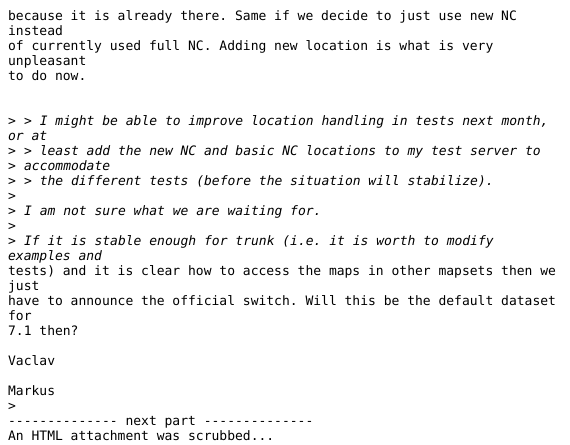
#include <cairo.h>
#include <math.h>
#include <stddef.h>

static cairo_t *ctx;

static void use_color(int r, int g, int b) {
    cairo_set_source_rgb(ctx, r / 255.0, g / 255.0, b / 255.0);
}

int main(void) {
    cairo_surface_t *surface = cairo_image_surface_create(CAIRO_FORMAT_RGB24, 570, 445);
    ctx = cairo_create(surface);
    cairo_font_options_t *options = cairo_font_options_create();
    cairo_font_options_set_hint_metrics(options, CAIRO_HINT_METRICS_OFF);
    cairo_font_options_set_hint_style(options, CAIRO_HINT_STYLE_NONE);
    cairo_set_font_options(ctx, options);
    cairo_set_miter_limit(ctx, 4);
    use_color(255, 255, 255);
    cairo_paint(ctx);
    cairo_select_font_face(ctx, "DejaVu Sans Mono", CAIRO_FONT_SLANT_NORMAL, CAIRO_FONT_WEIGHT_NORMAL);
    cairo_set_font_size(ctx, 13);
    use_color(0, 0, 0);
    cairo_move_to(ctx, 8, 20);
    cairo_show_text(ctx, "because it is already there. Same if we decide to just use new NC");
    cairo_move_to(ctx, 8, 35);
    cairo_show_text(ctx, "instead");
    cairo_move_to(ctx, 8, 50);
    cairo_show_text(ctx, "of currently used full NC. Adding new location is what is very");
    cairo_move_to(ctx, 8, 65);
    cairo_show_text(ctx, "unpleasant");
    cairo_move_to(ctx, 8, 80);
    cairo_show_text(ctx, "to do now.");
    cairo_move_to(ctx, 8, 125);
    cairo_show_text(ctx, ">");
    cairo_select_font_face(ctx, "DejaVu Sans Mono", CAIRO_FONT_SLANT_ITALIC, CAIRO_FONT_WEIGHT_NORMAL);
    cairo_move_to(ctx, 24, 125);
    cairo_show_text(ctx, "> I might be able to improve location handling in tests next month,");
    cairo_move_to(ctx, 8, 140);
    cairo_show_text(ctx, "or at");
    cairo_select_font_face(ctx, "DejaVu Sans Mono", CAIRO_FONT_SLANT_NORMAL, CAIRO_FONT_WEIGHT_NORMAL);
    cairo_move_to(ctx, 8, 155);
    cairo_show_text(ctx, ">");
    cairo_select_font_face(ctx, "DejaVu Sans Mono", CAIRO_FONT_SLANT_ITALIC, CAIRO_FONT_WEIGHT_NORMAL);
    cairo_move_to(ctx, 24, 155);
    cairo_show_text(ctx, "> least add the new NC and basic NC locations to my test server to");
    cairo_select_font_face(ctx, "DejaVu Sans Mono", CAIRO_FONT_SLANT_NORMAL, CAIRO_FONT_WEIGHT_NORMAL);
    cairo_move_to(ctx, 8, 170);
    cairo_show_text(ctx, ">");
    cairo_select_font_face(ctx, "DejaVu Sans Mono", CAIRO_FONT_SLANT_ITALIC, CAIRO_FONT_WEIGHT_NORMAL);
    cairo_move_to(ctx, 24, 170);
    cairo_show_text(ctx, "accommodate");
    cairo_select_font_face(ctx, "DejaVu Sans Mono", CAIRO_FONT_SLANT_NORMAL, CAIRO_FONT_WEIGHT_NORMAL);
    cairo_move_to(ctx, 8, 185);
    cairo_show_text(ctx, ">");
    cairo_select_font_face(ctx, "DejaVu Sans Mono", CAIRO_FONT_SLANT_ITALIC, CAIRO_FONT_WEIGHT_NORMAL);
    cairo_move_to(ctx, 24, 185);
    cairo_show_text(ctx, "> the different tests (before the situation will stabilize).");
    cairo_select_font_face(ctx, "DejaVu Sans Mono", CAIRO_FONT_SLANT_NORMAL, CAIRO_FONT_WEIGHT_NORMAL);
    cairo_move_to(ctx, 8, 200);
    cairo_show_text(ctx, ">");
    cairo_move_to(ctx, 8, 215);
    cairo_show_text(ctx, ">");
    cairo_select_font_face(ctx, "DejaVu Sans Mono", CAIRO_FONT_SLANT_ITALIC, CAIRO_FONT_WEIGHT_NORMAL);
    cairo_move_to(ctx, 24, 215);
    cairo_show_text(ctx, "I am not sure what we are waiting for.");
    cairo_select_font_face(ctx, "DejaVu Sans Mono", CAIRO_FONT_SLANT_NORMAL, CAIRO_FONT_WEIGHT_NORMAL);
    cairo_move_to(ctx, 8, 230);
    cairo_show_text(ctx, ">");
    cairo_move_to(ctx, 8, 245);
    cairo_show_text(ctx, ">");
    cairo_select_font_face(ctx, "DejaVu Sans Mono", CAIRO_FONT_SLANT_ITALIC, CAIRO_FONT_WEIGHT_NORMAL);
    cairo_move_to(ctx, 24, 245);
    cairo_show_text(ctx, "If it is stable enough for trunk (i.e. it is worth to modify");
    cairo_move_to(ctx, 8, 260);
    cairo_show_text(ctx, "examples and");
    cairo_select_font_face(ctx, "DejaVu Sans Mono", CAIRO_FONT_SLANT_NORMAL, CAIRO_FONT_WEIGHT_NORMAL);
    cairo_move_to(ctx, 8, 275);
    cairo_show_text(ctx, "tests) and it is clear how to access the maps in other mapsets then we");
    cairo_move_to(ctx, 8, 290);
    cairo_show_text(ctx, "just");
    cairo_move_to(ctx, 8, 305);
    cairo_show_text(ctx, "have to announce the official switch. Will this be the default dataset");
    cairo_move_to(ctx, 8, 320);
    cairo_show_text(ctx, "for");
    cairo_move_to(ctx, 8, 335);
    cairo_show_text(ctx, "7.1 then?");
    cairo_move_to(ctx, 8, 365);
    cairo_show_text(ctx, "Vaclav");
    cairo_move_to(ctx, 8, 395);
    cairo_show_text(ctx, "Markus");
    cairo_move_to(ctx, 8, 410);
    cairo_show_text(ctx, ">");
    cairo_move_to(ctx, 8, 425);
    cairo_show_text(ctx, "-------------- next part --------------");
    cairo_move_to(ctx, 8, 440);
    cairo_show_text(ctx, "An HTML attachment was scrubbed...");
    cairo_surface_write_to_png(surface, "result.png");
    cairo_font_options_destroy(options);
    cairo_destroy(ctx);
    cairo_surface_destroy(surface);
    return 0;
}
